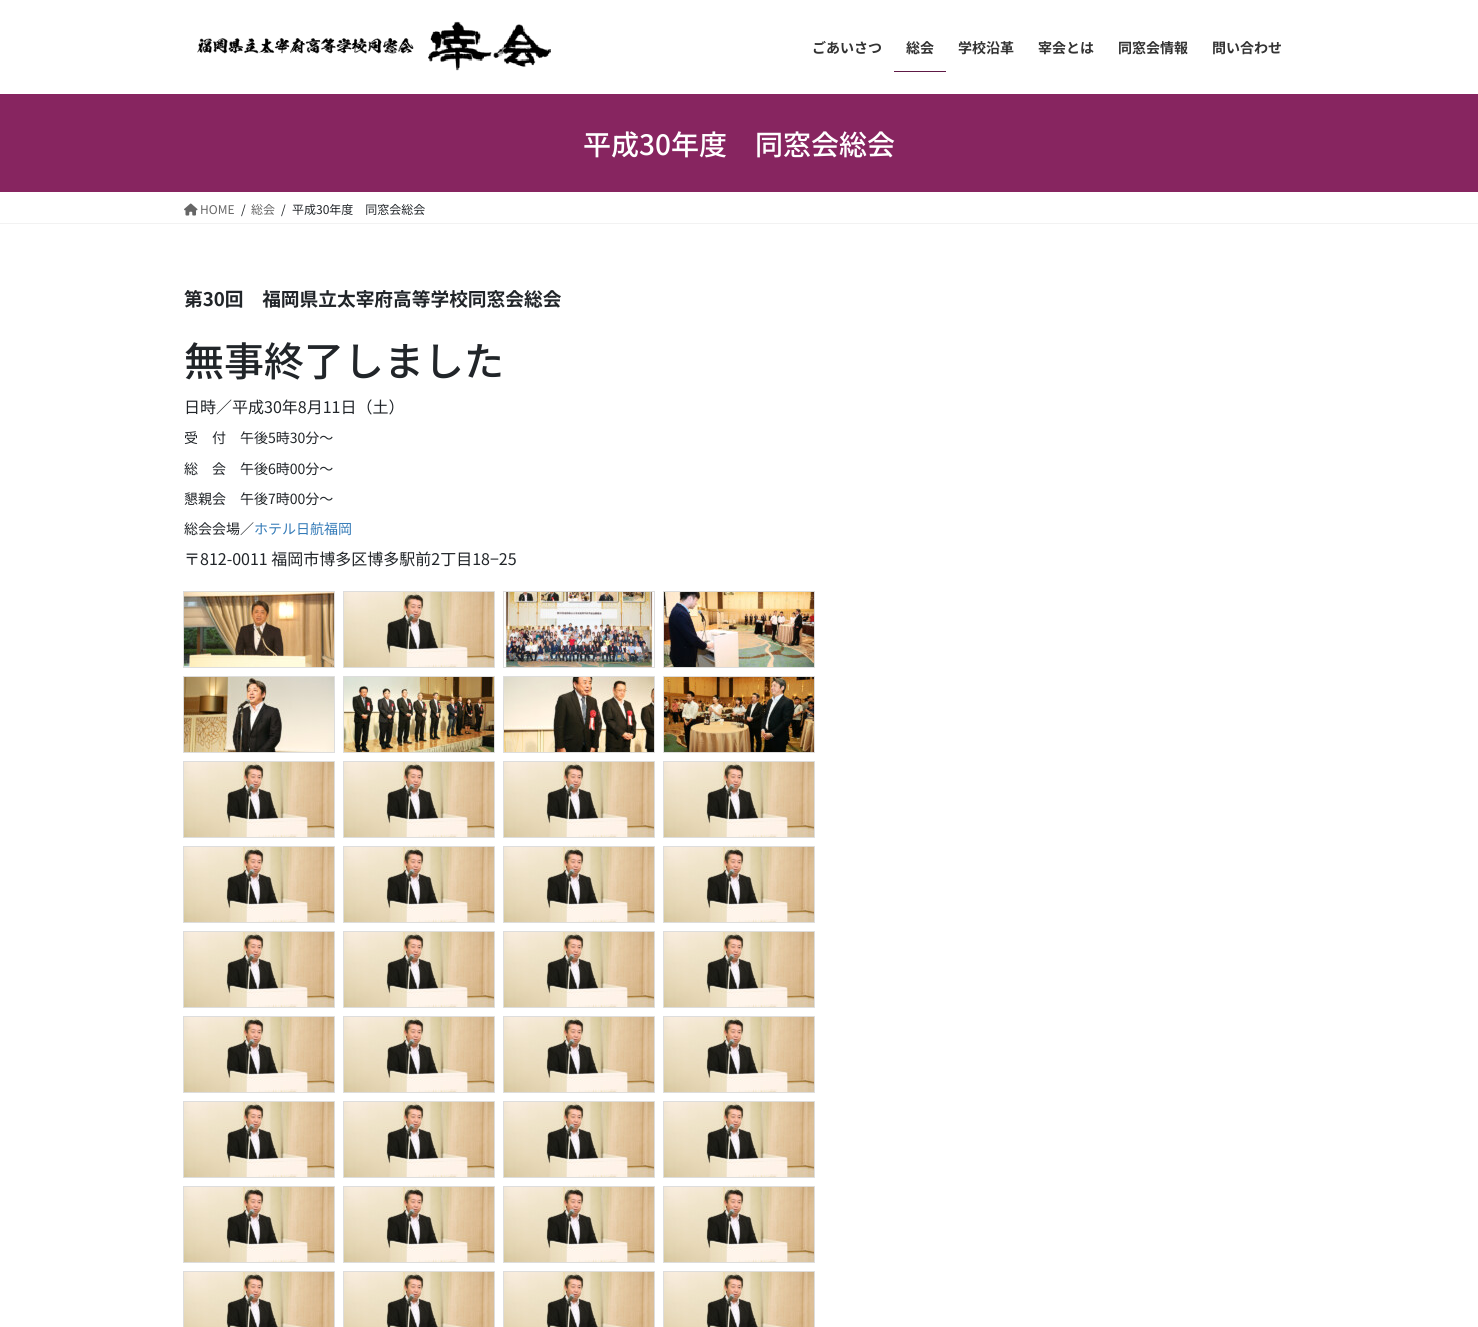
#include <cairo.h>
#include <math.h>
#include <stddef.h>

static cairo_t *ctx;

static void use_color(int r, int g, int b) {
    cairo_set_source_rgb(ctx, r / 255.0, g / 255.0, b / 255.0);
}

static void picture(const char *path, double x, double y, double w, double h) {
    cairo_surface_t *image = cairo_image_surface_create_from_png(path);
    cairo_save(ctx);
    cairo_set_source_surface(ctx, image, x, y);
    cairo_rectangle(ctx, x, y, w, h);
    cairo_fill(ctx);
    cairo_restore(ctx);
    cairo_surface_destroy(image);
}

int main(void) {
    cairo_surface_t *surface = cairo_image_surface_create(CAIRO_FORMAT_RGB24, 1478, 1327);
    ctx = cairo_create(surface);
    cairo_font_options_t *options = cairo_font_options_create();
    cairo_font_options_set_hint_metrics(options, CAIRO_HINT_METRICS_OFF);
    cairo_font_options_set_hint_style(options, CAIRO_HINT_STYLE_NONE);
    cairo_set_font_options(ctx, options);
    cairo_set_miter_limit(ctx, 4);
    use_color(255, 255, 255);
    cairo_paint(ctx);
    picture("img1.png", 197, 21, 354, 50);
    cairo_select_font_face(ctx, "Noto Sans JP", CAIRO_FONT_SLANT_NORMAL, CAIRO_FONT_WEIGHT_BOLD);
    cairo_set_font_size(ctx, 14);
    use_color(51, 51, 51);
    cairo_move_to(ctx, 812, 53);
    cairo_show_text(ctx, "ごあいさつ");
    cairo_move_to(ctx, 906, 53);
    cairo_show_text(ctx, "総会");
    use_color(94, 25, 69);
    cairo_rectangle(ctx, 894, 71, 52, 1);
    cairo_fill(ctx);
    use_color(51, 51, 51);
    cairo_move_to(ctx, 958, 53);
    cairo_show_text(ctx, "学校沿革");
    cairo_move_to(ctx, 1038, 53);
    cairo_show_text(ctx, "宰会とは");
    cairo_move_to(ctx, 1118, 53);
    cairo_show_text(ctx, "同窓会情報");
    cairo_move_to(ctx, 1212, 53);
    cairo_show_text(ctx, "問い合わせ");
    use_color(135, 37, 96);
    cairo_rectangle(ctx, 0, 94, 1478, 98);
    cairo_fill(ctx);
    cairo_select_font_face(ctx, "Noto Sans JP Medium", CAIRO_FONT_SLANT_NORMAL, CAIRO_FONT_WEIGHT_NORMAL);
    cairo_set_font_size(ctx, 28);
    use_color(255, 255, 255);
    cairo_move_to(ctx, 583, 155);
    cairo_show_text(ctx, "平成30年度　同窓会総会");
    use_color(242, 242, 242);
    cairo_rectangle(ctx, 0, 223, 1478, 1);
    cairo_fill(ctx);
    picture("img2.png", 184, 203, 14, 13);
    cairo_select_font_face(ctx, "Noto Sans JP", CAIRO_FONT_SLANT_NORMAL, CAIRO_FONT_WEIGHT_NORMAL);
    cairo_set_font_size(ctx, 12);
    use_color(102, 102, 102);
    cairo_move_to(ctx, 200, 214);
    cairo_show_text(ctx, "HOME");
    use_color(33, 37, 41);
    cairo_move_to(ctx, 241, 214);
    cairo_show_text(ctx, "/");
    use_color(102, 102, 102);
    cairo_move_to(ctx, 251, 214);
    cairo_show_text(ctx, "総会");
    use_color(33, 37, 41);
    cairo_move_to(ctx, 281, 214);
    cairo_show_text(ctx, "/");
    cairo_move_to(ctx, 292, 214);
    cairo_show_text(ctx, "平成30年度　同窓会総会");
    cairo_select_font_face(ctx, "Noto Sans JP", CAIRO_FONT_SLANT_NORMAL, CAIRO_FONT_WEIGHT_BOLD);
    cairo_set_font_size(ctx, 18.7);
    cairo_move_to(ctx, 184, 306);
    cairo_show_text(ctx, "第30回　福岡県立太宰府高等学校同窓会総会");
    cairo_select_font_face(ctx, "Noto Sans JP Medium", CAIRO_FONT_SLANT_NORMAL, CAIRO_FONT_WEIGHT_NORMAL);
    cairo_set_font_size(ctx, 40);
    cairo_move_to(ctx, 184, 376);
    cairo_show_text(ctx, "無事終了しました");
    cairo_select_font_face(ctx, "Noto Sans JP", CAIRO_FONT_SLANT_NORMAL, CAIRO_FONT_WEIGHT_NORMAL);
    cairo_set_font_size(ctx, 16);
    cairo_move_to(ctx, 184, 413);
    cairo_show_text(ctx, "日時／平成30年8月11日（土）");
    cairo_set_font_size(ctx, 14);
    cairo_move_to(ctx, 184, 443);
    cairo_show_text(ctx, "受　付　午後5時30分〜");
    cairo_move_to(ctx, 184, 474);
    cairo_show_text(ctx, "総　会　午後6時00分〜");
    cairo_move_to(ctx, 184, 504);
    cairo_show_text(ctx, "懇親会　午後7時00分〜");
    cairo_move_to(ctx, 184, 534);
    cairo_show_text(ctx, "総会会場／");
    use_color(51, 122, 183);
    cairo_move_to(ctx, 254, 534);
    cairo_show_text(ctx, "ホテル日航福岡");
    cairo_set_font_size(ctx, 16);
    use_color(33, 37, 41);
    cairo_move_to(ctx, 184, 565);
    cairo_show_text(ctx, "〒812-0011 福岡市博多区博多駅前2丁目18−25");
    cairo_rectangle(ctx, 183.5, 591.5, 151, 76);
    use_color(221, 221, 221);
    cairo_set_line_width(ctx, 1);
    cairo_stroke(ctx);
    picture("img3.png", 184, 592, 150, 75);
    cairo_rectangle(ctx, 343.5, 591.5, 151, 76);
    cairo_stroke(ctx);
    picture("img4.png", 344, 592, 150, 75);
    cairo_rectangle(ctx, 503.5, 591.5, 151, 76);
    cairo_stroke(ctx);
    picture("img5.png", 504, 592, 150, 75);
    cairo_rectangle(ctx, 663.5, 591.5, 151, 76);
    cairo_stroke(ctx);
    picture("img6.png", 664, 592, 150, 75);
    cairo_rectangle(ctx, 183.5, 676.5, 151, 76);
    cairo_stroke(ctx);
    picture("img7.png", 184, 677, 150, 75);
    cairo_rectangle(ctx, 343.5, 676.5, 151, 76);
    cairo_stroke(ctx);
    picture("img8.png", 344, 677, 150, 75);
    cairo_rectangle(ctx, 503.5, 676.5, 151, 76);
    cairo_stroke(ctx);
    picture("img9.png", 504, 677, 150, 75);
    cairo_rectangle(ctx, 663.5, 676.5, 151, 76);
    cairo_stroke(ctx);
    picture("img10.png", 664, 677, 150, 75);
    cairo_rectangle(ctx, 183.5, 761.5, 151, 76);
    cairo_stroke(ctx);
    picture("img4.png", 184, 762, 150, 75);
    cairo_rectangle(ctx, 343.5, 761.5, 151, 76);
    cairo_stroke(ctx);
    picture("img4.png", 344, 762, 150, 75);
    cairo_rectangle(ctx, 503.5, 761.5, 151, 76);
    cairo_stroke(ctx);
    picture("img4.png", 504, 762, 150, 75);
    cairo_rectangle(ctx, 663.5, 761.5, 151, 76);
    cairo_stroke(ctx);
    picture("img4.png", 664, 762, 150, 75);
    cairo_rectangle(ctx, 183.5, 846.5, 151, 76);
    cairo_stroke(ctx);
    picture("img4.png", 184, 847, 150, 75);
    cairo_rectangle(ctx, 343.5, 846.5, 151, 76);
    cairo_stroke(ctx);
    picture("img4.png", 344, 847, 150, 75);
    cairo_rectangle(ctx, 503.5, 846.5, 151, 76);
    cairo_stroke(ctx);
    picture("img4.png", 504, 847, 150, 75);
    cairo_rectangle(ctx, 663.5, 846.5, 151, 76);
    cairo_stroke(ctx);
    picture("img4.png", 664, 847, 150, 75);
    cairo_rectangle(ctx, 183.5, 931.5, 151, 76);
    cairo_stroke(ctx);
    picture("img4.png", 184, 932, 150, 75);
    cairo_rectangle(ctx, 343.5, 931.5, 151, 76);
    cairo_stroke(ctx);
    picture("img4.png", 344, 932, 150, 75);
    cairo_rectangle(ctx, 503.5, 931.5, 151, 76);
    cairo_stroke(ctx);
    picture("img4.png", 504, 932, 150, 75);
    cairo_rectangle(ctx, 663.5, 931.5, 151, 76);
    cairo_stroke(ctx);
    picture("img4.png", 664, 932, 150, 75);
    cairo_rectangle(ctx, 183.5, 1016.5, 151, 76);
    cairo_stroke(ctx);
    picture("img4.png", 184, 1017, 150, 75);
    cairo_rectangle(ctx, 343.5, 1016.5, 151, 76);
    cairo_stroke(ctx);
    picture("img4.png", 344, 1017, 150, 75);
    cairo_rectangle(ctx, 503.5, 1016.5, 151, 76);
    cairo_stroke(ctx);
    picture("img4.png", 504, 1017, 150, 75);
    cairo_rectangle(ctx, 663.5, 1016.5, 151, 76);
    cairo_stroke(ctx);
    picture("img4.png", 664, 1017, 150, 75);
    cairo_rectangle(ctx, 183.5, 1101.5, 151, 76);
    cairo_stroke(ctx);
    picture("img4.png", 184, 1102, 150, 75);
    cairo_rectangle(ctx, 343.5, 1101.5, 151, 76);
    cairo_stroke(ctx);
    picture("img4.png", 344, 1102, 150, 75);
    cairo_rectangle(ctx, 503.5, 1101.5, 151, 76);
    cairo_stroke(ctx);
    picture("img4.png", 504, 1102, 150, 75);
    cairo_rectangle(ctx, 663.5, 1101.5, 151, 76);
    cairo_stroke(ctx);
    picture("img4.png", 664, 1102, 150, 75);
    cairo_rectangle(ctx, 183.5, 1186.5, 151, 76);
    cairo_stroke(ctx);
    picture("img4.png", 184, 1187, 150, 75);
    cairo_rectangle(ctx, 343.5, 1186.5, 151, 76);
    cairo_stroke(ctx);
    picture("img4.png", 344, 1187, 150, 75);
    cairo_rectangle(ctx, 503.5, 1186.5, 151, 76);
    cairo_stroke(ctx);
    picture("img4.png", 504, 1187, 150, 75);
    cairo_rectangle(ctx, 663.5, 1186.5, 151, 76);
    cairo_stroke(ctx);
    picture("img4.png", 664, 1187, 150, 75);
    cairo_rectangle(ctx, 183.5, 1271.5, 151, 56);
    cairo_stroke(ctx);
    picture("img11.png", 184, 1272, 150, 55);
    cairo_rectangle(ctx, 343.5, 1271.5, 151, 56);
    cairo_stroke(ctx);
    picture("img11.png", 344, 1272, 150, 55);
    cairo_rectangle(ctx, 503.5, 1271.5, 151, 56);
    cairo_stroke(ctx);
    picture("img11.png", 504, 1272, 150, 55);
    cairo_rectangle(ctx, 663.5, 1271.5, 151, 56);
    cairo_stroke(ctx);
    picture("img11.png", 664, 1272, 150, 55);
    cairo_surface_write_to_png(surface, "result.png");
    cairo_font_options_destroy(options);
    cairo_destroy(ctx);
    cairo_surface_destroy(surface);
    return 0;
}
